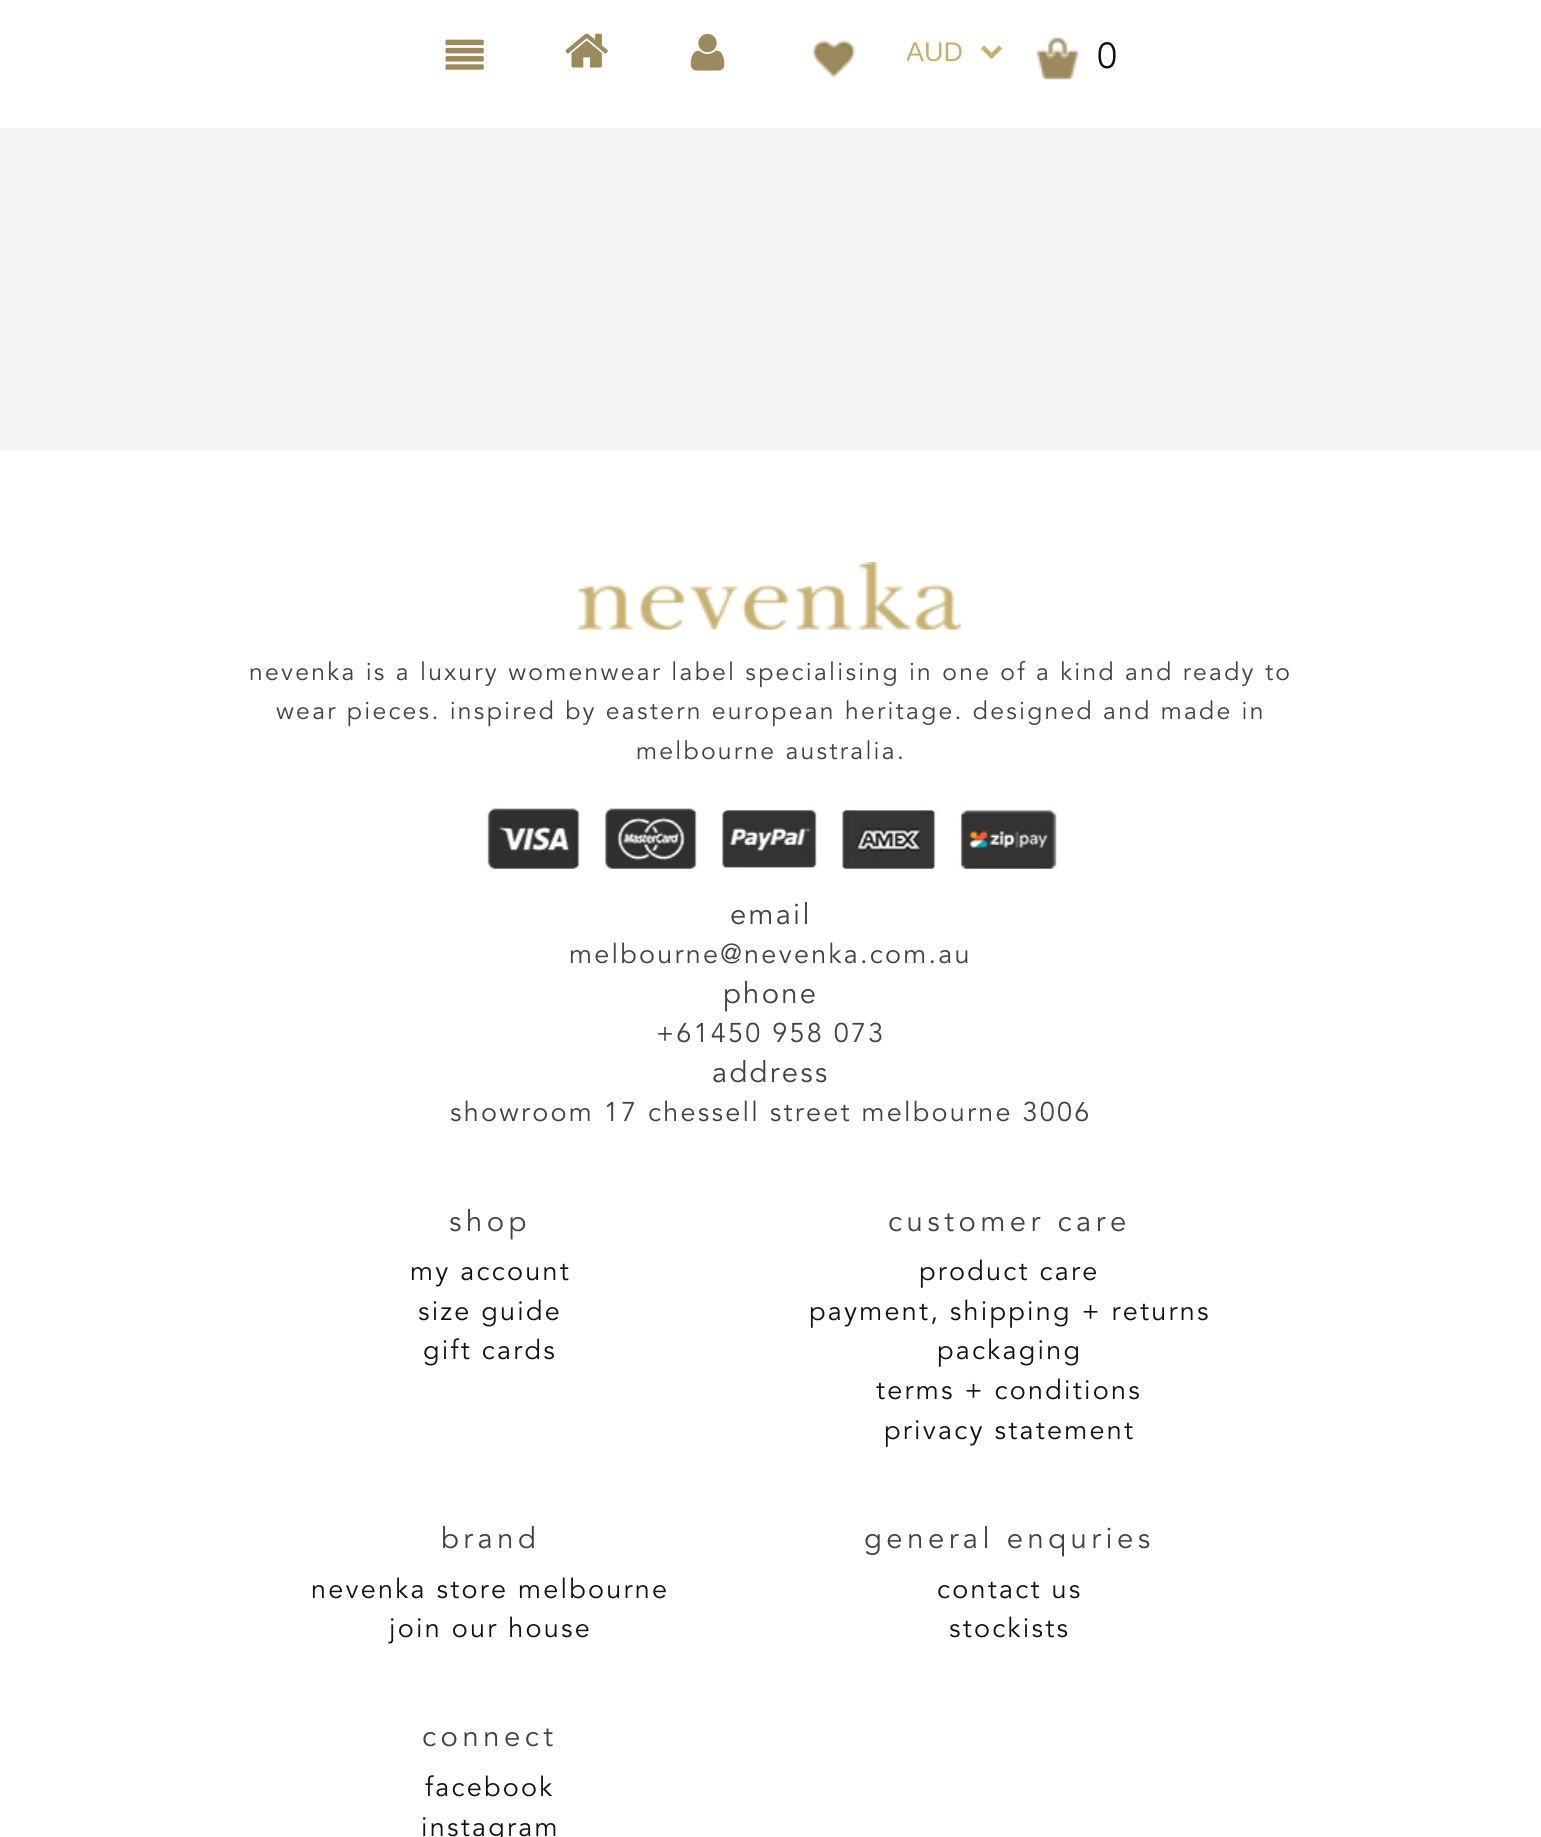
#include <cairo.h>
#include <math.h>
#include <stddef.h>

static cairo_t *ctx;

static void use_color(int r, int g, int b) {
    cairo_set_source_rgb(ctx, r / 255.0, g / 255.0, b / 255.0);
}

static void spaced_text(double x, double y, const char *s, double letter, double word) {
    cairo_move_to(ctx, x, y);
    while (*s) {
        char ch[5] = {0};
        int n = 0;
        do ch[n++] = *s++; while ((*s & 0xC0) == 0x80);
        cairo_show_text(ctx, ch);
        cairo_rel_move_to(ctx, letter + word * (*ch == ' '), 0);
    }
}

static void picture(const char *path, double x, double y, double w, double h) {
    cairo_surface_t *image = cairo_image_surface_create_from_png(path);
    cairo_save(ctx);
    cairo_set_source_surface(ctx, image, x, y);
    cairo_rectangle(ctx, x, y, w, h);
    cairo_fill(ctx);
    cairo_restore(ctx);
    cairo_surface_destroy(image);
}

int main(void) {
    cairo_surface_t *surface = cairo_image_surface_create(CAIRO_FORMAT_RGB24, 1541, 1837);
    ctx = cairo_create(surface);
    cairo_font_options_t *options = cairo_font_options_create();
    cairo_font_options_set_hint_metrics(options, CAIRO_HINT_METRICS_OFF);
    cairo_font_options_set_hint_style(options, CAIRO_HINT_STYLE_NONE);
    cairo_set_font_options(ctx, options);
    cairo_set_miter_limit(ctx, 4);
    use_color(255, 255, 255);
    cairo_paint(ctx);
    picture("img1.png", 445, 39, 39, 31);
    picture("img2.png", 565, 33, 43, 35);
    picture("img3.png", 690, 33, 35, 38);
    picture("img4.png", 811, 39, 45, 39);
    cairo_new_path(ctx);
    cairo_move_to(ctx, 982.5, 47);
    cairo_line_to(ctx, 991.5, 56);
    cairo_line_to(ctx, 1000.5, 47);
    use_color(197, 176, 113);
    cairo_set_line_width(ctx, 4.5);
    cairo_stroke(ctx);
    cairo_save(ctx);
    cairo_rectangle(ctx, 907, 34, 67, 36);
    cairo_clip(ctx);
    cairo_select_font_face(ctx, "Liberation Sans", CAIRO_FONT_SLANT_NORMAL, CAIRO_FONT_WEIGHT_NORMAL);
    cairo_set_font_size(ctx, 27);
    cairo_move_to(ctx, 906, 61);
    cairo_show_text(ctx, "AUD");
    cairo_restore(ctx);
    picture("img5.png", 1036, 37, 43, 43);
    cairo_select_font_face(ctx, "Avenir", CAIRO_FONT_SLANT_NORMAL, CAIRO_FONT_WEIGHT_NORMAL);
    cairo_set_font_size(ctx, 36);
    use_color(17, 17, 17);
    spaced_text(1097, 68, "0", 2.25, 0);
    use_color(245, 244, 244);
    cairo_rectangle(ctx, 0, 128, 1541, 322);
    cairo_fill(ctx);
    picture("img6.png", 578, 562, 384, 68);
    cairo_set_font_size(ctx, 24.75);
    use_color(70, 65, 65);
    spaced_text(249, 680, "nevenka is a luxury womenwear label specialising in one of a kind and ready to", 2.25, 0);
    spaced_text(276, 719, "wear pieces. inspired by eastern european heritage. designed and made in", 2.25, 0);
    spaced_text(636, 759, "melbourne australia.", 2.25, 0);
    picture("img7.png", 487, 806, 571, 64);
    cairo_set_font_size(ctx, 29.25);
    spaced_text(730, 924, "email", 2.25, 0);
    cairo_set_font_size(ctx, 27);
    spaced_text(569, 963, "melbourne@nevenka.com.au", 2.25, 0);
    cairo_set_font_size(ctx, 29.25);
    spaced_text(723, 1003, "phone", 2.25, 0);
    cairo_set_font_size(ctx, 27);
    spaced_text(656, 1042, "+61450 958 073", 2.25, 0);
    cairo_set_font_size(ctx, 29.25);
    spaced_text(712, 1082, "address", 2.25, 0);
    cairo_set_font_size(ctx, 27);
    spaced_text(450, 1121, "showroom 17 chessell street melbourne 3006", 2.25, 0);
    cairo_set_font_size(ctx, 29.25);
    spaced_text(449, 1231, "shop", 4.5, 0);
    cairo_set_font_size(ctx, 27);
    use_color(17, 17, 17);
    spaced_text(410, 1280, "my account", 2.25, 0);
    spaced_text(418, 1320, "size guide", 2.25, 0);
    spaced_text(423, 1359, "gift cards", 2.25, 0);
    cairo_set_font_size(ctx, 29.25);
    use_color(70, 65, 65);
    spaced_text(888, 1231, "customer care", 4.5, 0);
    cairo_set_font_size(ctx, 27);
    use_color(17, 17, 17);
    spaced_text(919, 1280, "product care", 2.25, 0);
    spaced_text(809, 1320, "payment, shipping + returns", 2.25, 0);
    spaced_text(937, 1359, "packaging", 2.25, 0);
    spaced_text(876, 1399, "terms + conditions", 2.25, 0);
    spaced_text(884, 1439, "privacy statement", 2.25, 0);
    cairo_set_font_size(ctx, 29.25);
    use_color(70, 65, 65);
    spaced_text(441, 1548, "brand", 4.5, 0);
    cairo_set_font_size(ctx, 27);
    use_color(17, 17, 17);
    spaced_text(311, 1598, "nevenka store melbourne", 2.25, 0);
    spaced_text(389, 1637, "join our house", 2.25, 0);
    cairo_set_font_size(ctx, 29.25);
    use_color(70, 65, 65);
    spaced_text(864, 1548, "general enquries", 4.5, 0);
    cairo_set_font_size(ctx, 27);
    use_color(17, 17, 17);
    spaced_text(937, 1598, "contact us", 2.25, 0);
    spaced_text(949, 1637, "stockists", 2.25, 0);
    cairo_set_font_size(ctx, 29.25);
    use_color(70, 65, 65);
    spaced_text(422, 1746, "connect", 4.5, 0);
    cairo_set_font_size(ctx, 27);
    use_color(17, 17, 17);
    spaced_text(425, 1796, "facebook", 2.25, 0);
    spaced_text(421, 1836, "instagram", 2.25, 0);
    cairo_surface_write_to_png(surface, "result.png");
    cairo_font_options_destroy(options);
    cairo_destroy(ctx);
    cairo_surface_destroy(surface);
    return 0;
}
